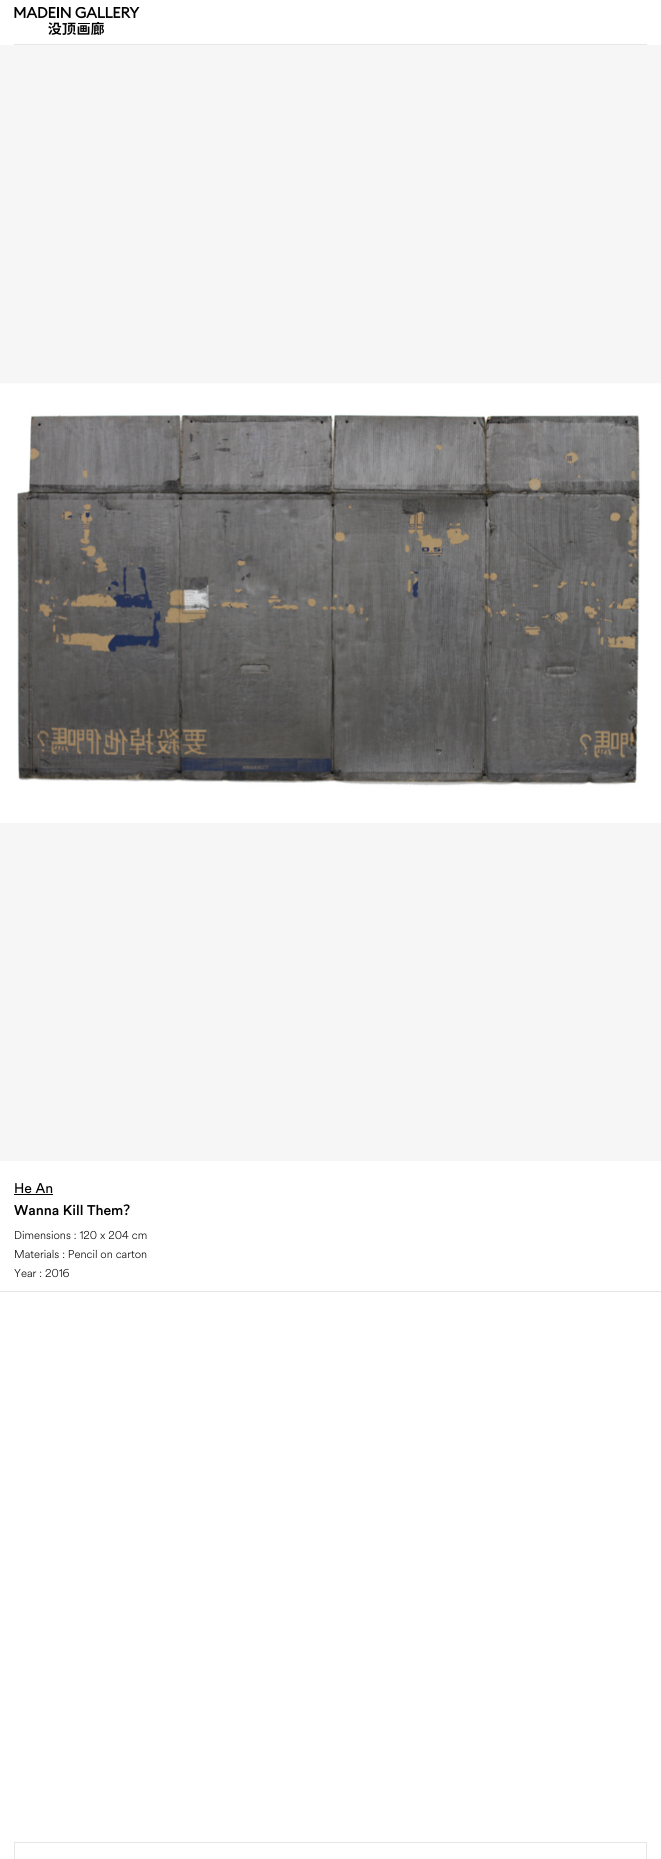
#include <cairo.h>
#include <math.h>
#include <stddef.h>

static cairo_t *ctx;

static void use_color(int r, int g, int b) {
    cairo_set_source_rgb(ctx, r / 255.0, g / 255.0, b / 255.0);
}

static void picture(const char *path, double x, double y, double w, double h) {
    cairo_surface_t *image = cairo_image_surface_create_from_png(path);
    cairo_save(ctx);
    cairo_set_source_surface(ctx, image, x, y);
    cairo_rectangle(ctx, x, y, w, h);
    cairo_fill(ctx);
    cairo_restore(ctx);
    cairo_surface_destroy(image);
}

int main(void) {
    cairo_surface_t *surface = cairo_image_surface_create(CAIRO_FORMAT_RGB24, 661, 1859);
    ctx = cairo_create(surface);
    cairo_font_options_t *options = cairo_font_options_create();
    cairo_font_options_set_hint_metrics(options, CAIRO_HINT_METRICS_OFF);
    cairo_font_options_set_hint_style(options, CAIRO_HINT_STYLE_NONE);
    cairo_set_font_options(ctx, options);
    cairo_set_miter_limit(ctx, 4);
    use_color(255, 255, 255);
    cairo_paint(ctx);
    picture("img1.png", 14, 7, 126, 28);
    use_color(230, 230, 230);
    cairo_rectangle(ctx, 14, 44, 633, 1);
    cairo_fill(ctx);
    use_color(246, 246, 246);
    cairo_rectangle(ctx, 0, 45, 661, 1116);
    cairo_fill(ctx);
    picture("img2.png", 0, 383, 661, 440);
    cairo_select_font_face(ctx, "Circular", CAIRO_FONT_SLANT_NORMAL, CAIRO_FONT_WEIGHT_NORMAL);
    cairo_set_font_size(ctx, 14);
    use_color(0, 0, 0);
    cairo_move_to(ctx, 14, 1193);
    cairo_show_text(ctx, "He An");
    cairo_rectangle(ctx, 14, 1194, 39, 1);
    cairo_fill(ctx);
    cairo_select_font_face(ctx, "Circular Medium", CAIRO_FONT_SLANT_NORMAL, CAIRO_FONT_WEIGHT_NORMAL);
    cairo_move_to(ctx, 14, 1215);
    cairo_show_text(ctx, "Wanna Kill Them");
    cairo_select_font_face(ctx, "Noto Sans SC Medium", CAIRO_FONT_SLANT_NORMAL, CAIRO_FONT_WEIGHT_NORMAL);
    cairo_move_to(ctx, 123, 1215);
    cairo_show_text(ctx, "？");
    cairo_select_font_face(ctx, "Circular Light", CAIRO_FONT_SLANT_NORMAL, CAIRO_FONT_WEIGHT_NORMAL);
    cairo_set_font_size(ctx, 11.25);
    cairo_move_to(ctx, 14, 1239);
    cairo_show_text(ctx, "Dimensions : 120 x 204 cm");
    cairo_move_to(ctx, 14, 1258);
    cairo_show_text(ctx, "Materials : Pencil on carton");
    cairo_move_to(ctx, 14, 1277);
    cairo_show_text(ctx, "Year : 2016");
    use_color(230, 230, 230);
    cairo_rectangle(ctx, 0, 1291, 661, 1);
    cairo_fill(ctx);
    cairo_rectangle(ctx, 14.5, 1842.5, 632, 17);
    cairo_set_line_width(ctx, 1);
    cairo_stroke(ctx);
    cairo_surface_write_to_png(surface, "result.png");
    cairo_font_options_destroy(options);
    cairo_destroy(ctx);
    cairo_surface_destroy(surface);
    return 0;
}
